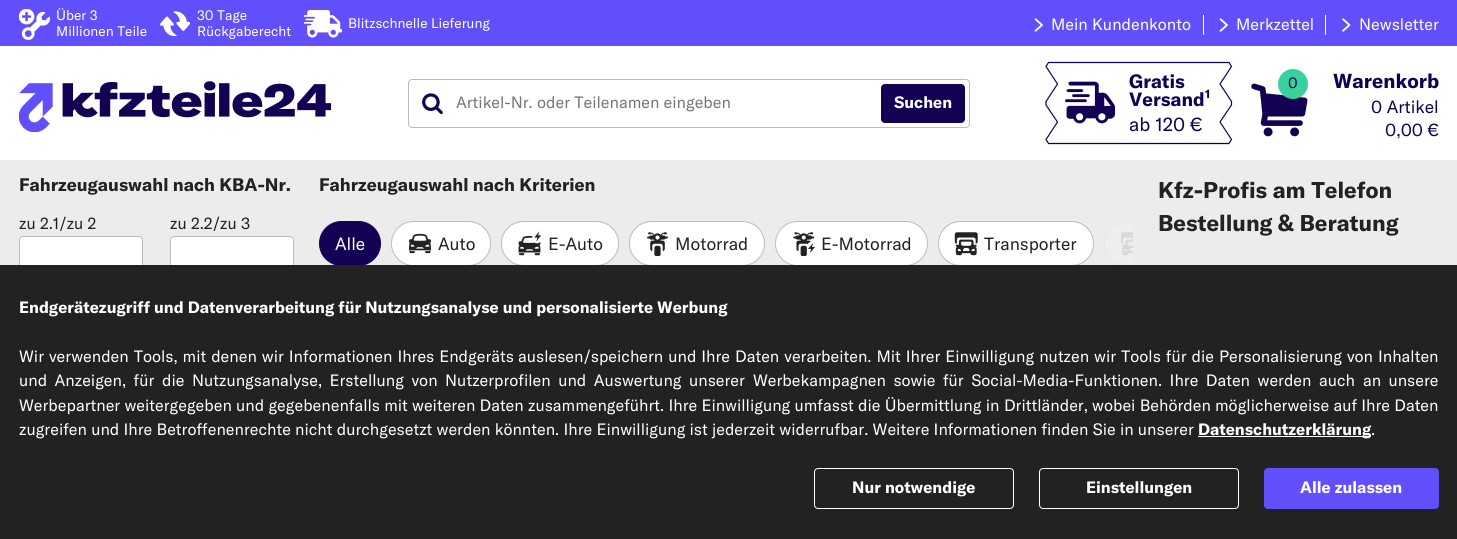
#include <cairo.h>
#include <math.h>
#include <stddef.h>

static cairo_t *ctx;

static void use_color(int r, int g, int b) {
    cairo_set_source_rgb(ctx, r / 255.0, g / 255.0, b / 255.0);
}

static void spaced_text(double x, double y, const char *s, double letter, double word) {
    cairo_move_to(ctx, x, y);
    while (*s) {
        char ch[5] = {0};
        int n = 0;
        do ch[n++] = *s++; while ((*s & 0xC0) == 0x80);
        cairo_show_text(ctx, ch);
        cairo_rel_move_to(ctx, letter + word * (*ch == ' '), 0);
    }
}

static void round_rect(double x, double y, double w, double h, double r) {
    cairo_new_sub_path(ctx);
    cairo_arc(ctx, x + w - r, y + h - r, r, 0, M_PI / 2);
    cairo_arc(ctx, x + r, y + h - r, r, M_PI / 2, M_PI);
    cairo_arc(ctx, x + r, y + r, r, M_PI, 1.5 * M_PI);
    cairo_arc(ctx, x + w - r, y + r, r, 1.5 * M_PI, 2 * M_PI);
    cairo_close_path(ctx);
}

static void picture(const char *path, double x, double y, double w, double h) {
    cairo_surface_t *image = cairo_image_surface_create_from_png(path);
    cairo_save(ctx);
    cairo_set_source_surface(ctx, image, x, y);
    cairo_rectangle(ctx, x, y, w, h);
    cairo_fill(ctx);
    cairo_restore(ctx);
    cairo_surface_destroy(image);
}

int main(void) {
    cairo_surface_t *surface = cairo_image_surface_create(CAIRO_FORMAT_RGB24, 1457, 539);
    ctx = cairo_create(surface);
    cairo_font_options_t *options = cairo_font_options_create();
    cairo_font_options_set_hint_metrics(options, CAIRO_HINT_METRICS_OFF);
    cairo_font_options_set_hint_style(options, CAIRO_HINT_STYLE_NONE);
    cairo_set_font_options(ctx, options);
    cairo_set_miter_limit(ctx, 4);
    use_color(255, 255, 255);
    cairo_paint(ctx);
    use_color(97, 79, 251);
    cairo_rectangle(ctx, 0, 0, 1457, 46);
    cairo_fill(ctx);
    picture("img1.png", 19, 9, 31, 31);
    cairo_select_font_face(ctx, "GT America", CAIRO_FONT_SLANT_NORMAL, CAIRO_FONT_WEIGHT_NORMAL);
    cairo_set_font_size(ctx, 13.75);
    use_color(255, 255, 255);
    cairo_move_to(ctx, 56, 20);
    cairo_show_text(ctx, "Über 3");
    cairo_move_to(ctx, 56, 36);
    cairo_show_text(ctx, "Millionen Teile");
    picture("img2.png", 160, 11, 30, 25);
    cairo_move_to(ctx, 197, 20);
    cairo_show_text(ctx, "30 Tage");
    cairo_move_to(ctx, 197, 36);
    cairo_show_text(ctx, "Rückgaberecht");
    picture("img3.png", 304, 10, 38, 28);
    cairo_move_to(ctx, 348, 28);
    cairo_show_text(ctx, "Blitzschnelle Lieferung");
    picture("img4.png", 1034, 18, 9, 14);
    cairo_set_font_size(ctx, 16.25);
    cairo_move_to(ctx, 1051, 30);
    cairo_show_text(ctx, "Mein Kundenkonto");
    cairo_rectangle(ctx, 1203, 15, 1, 20);
    cairo_fill(ctx);
    picture("img4.png", 1219, 18, 9, 14);
    cairo_move_to(ctx, 1236, 30);
    cairo_show_text(ctx, "Merkzettel");
    cairo_rectangle(ctx, 1325, 15, 1, 20);
    cairo_fill(ctx);
    picture("img5.png", 1342, 18, 9, 14);
    cairo_move_to(ctx, 1359, 30);
    cairo_show_text(ctx, "Newsletter");
    picture("img6.png", 19, 81, 312, 51);
    round_rect(408.5, 79.5, 561, 48, 3.5);
    use_color(188, 188, 192);
    cairo_set_line_width(ctx, 1);
    cairo_stroke(ctx);
    picture("img7.png", 422, 93, 21, 22);
    use_color(117, 117, 117);
    cairo_move_to(ctx, 456, 108);
    cairo_show_text(ctx, "Artikel-Nr. oder Teilenamen eingeben");
    use_color(19, 2, 84);
    round_rect(881, 84, 84, 39, 4);
    cairo_fill(ctx);
    cairo_select_font_face(ctx, "GT America", CAIRO_FONT_SLANT_NORMAL, CAIRO_FONT_WEIGHT_BOLD);
    use_color(255, 255, 255);
    cairo_move_to(ctx, 894, 108);
    cairo_show_text(ctx, "Suchen");
    cairo_new_path(ctx);
    cairo_move_to(ctx, 1229, 62.5);
    cairo_line_to(ctx, 1048.5, 62.5);
    cairo_line_to(ctx, 1046, 66.5);
    cairo_line_to(ctx, 1057.5, 84);
    cairo_line_to(ctx, 1046, 101.5);
    cairo_line_to(ctx, 1046, 105);
    cairo_line_to(ctx, 1057.5, 122);
    cairo_line_to(ctx, 1046, 139.5);
    cairo_line_to(ctx, 1048.5, 143.5);
    cairo_line_to(ctx, 1229, 143.5);
    cairo_line_to(ctx, 1231.5, 139.5);
    cairo_line_to(ctx, 1220, 122);
    cairo_line_to(ctx, 1231.5, 105);
    cairo_line_to(ctx, 1231.5, 101.5);
    cairo_line_to(ctx, 1220, 84);
    cairo_line_to(ctx, 1231.5, 66.5);
    cairo_close_path(ctx);
    use_color(19, 2, 84);
    cairo_set_line_width(ctx, 1.2);
    cairo_stroke(ctx);
    picture("img8.png", 1065, 81, 50, 43);
    cairo_set_font_size(ctx, 19);
    cairo_move_to(ctx, 1129, 88);
    cairo_show_text(ctx, "Gratis");
    cairo_move_to(ctx, 1129, 106);
    cairo_show_text(ctx, "Versand");
    cairo_set_font_size(ctx, 12);
    cairo_move_to(ctx, 1205, 98);
    cairo_show_text(ctx, "1");
    cairo_select_font_face(ctx, "GT America", CAIRO_FONT_SLANT_NORMAL, CAIRO_FONT_WEIGHT_NORMAL);
    cairo_set_font_size(ctx, 19);
    cairo_move_to(ctx, 1129, 131);
    cairo_show_text(ctx, "ab 120 €");
    picture("img9.png", 1251, 83, 57, 54);
    use_color(55, 209, 158);
    cairo_arc(ctx, 1293, 84, 15, 0, 2 * M_PI);
    cairo_fill(ctx);
    cairo_set_font_size(ctx, 15);
    use_color(19, 2, 84);
    cairo_move_to(ctx, 1288, 88);
    cairo_show_text(ctx, "0");
    cairo_select_font_face(ctx, "GT America", CAIRO_FONT_SLANT_NORMAL, CAIRO_FONT_WEIGHT_BOLD);
    cairo_set_font_size(ctx, 20);
    cairo_move_to(ctx, 1333, 88);
    cairo_show_text(ctx, "Warenkorb");
    cairo_select_font_face(ctx, "GT America", CAIRO_FONT_SLANT_NORMAL, CAIRO_FONT_WEIGHT_NORMAL);
    cairo_set_font_size(ctx, 17.5);
    cairo_move_to(ctx, 1371, 113);
    cairo_show_text(ctx, "0 Artikel");
    cairo_move_to(ctx, 1385, 136);
    cairo_show_text(ctx, "0,00 €");
    use_color(236, 236, 236);
    cairo_rectangle(ctx, 0, 160, 1457, 105);
    cairo_fill(ctx);
    cairo_select_font_face(ctx, "GT America", CAIRO_FONT_SLANT_NORMAL, CAIRO_FONT_WEIGHT_BOLD);
    cairo_set_font_size(ctx, 17.9);
    use_color(34, 34, 34);
    cairo_move_to(ctx, 19, 191);
    cairo_show_text(ctx, "Fahrzeugauswahl nach KBA-Nr.");
    cairo_select_font_face(ctx, "GT America", CAIRO_FONT_SLANT_NORMAL, CAIRO_FONT_WEIGHT_NORMAL);
    cairo_set_font_size(ctx, 16.25);
    cairo_move_to(ctx, 19, 229);
    cairo_show_text(ctx, "zu 2.1/zu 2");
    use_color(255, 255, 255);
    round_rect(19.5, 236.5, 123, 38, 3.5);
    cairo_fill_preserve(ctx);
    use_color(188, 188, 192);
    cairo_set_line_width(ctx, 1);
    cairo_stroke(ctx);
    use_color(34, 34, 34);
    cairo_move_to(ctx, 170, 229);
    cairo_show_text(ctx, "zu 2.2/zu 3");
    use_color(255, 255, 255);
    round_rect(170.5, 236.5, 123, 38, 3.5);
    cairo_fill_preserve(ctx);
    use_color(188, 188, 192);
    cairo_stroke(ctx);
    cairo_select_font_face(ctx, "GT America", CAIRO_FONT_SLANT_NORMAL, CAIRO_FONT_WEIGHT_BOLD);
    cairo_set_font_size(ctx, 17.9);
    use_color(34, 34, 34);
    cairo_move_to(ctx, 319, 191);
    cairo_show_text(ctx, "Fahrzeugauswahl nach Kriterien");
    use_color(19, 2, 84);
    round_rect(319.5, 221.5, 61, 44, 22);
    cairo_fill_preserve(ctx);
    cairo_stroke(ctx);
    cairo_select_font_face(ctx, "GT America", CAIRO_FONT_SLANT_NORMAL, CAIRO_FONT_WEIGHT_NORMAL);
    cairo_set_font_size(ctx, 17.5);
    use_color(255, 255, 255);
    cairo_move_to(ctx, 335, 250);
    cairo_show_text(ctx, "Alle");
    round_rect(391.5, 221.5, 99, 44, 22);
    cairo_fill_preserve(ctx);
    use_color(188, 188, 192);
    cairo_stroke(ctx);
    picture("img10.png", 409, 233, 22, 21);
    use_color(34, 34, 34);
    cairo_move_to(ctx, 438, 250);
    cairo_show_text(ctx, "Auto");
    use_color(255, 255, 255);
    round_rect(501.5, 221.5, 117, 44, 22);
    cairo_fill_preserve(ctx);
    use_color(188, 188, 192);
    cairo_stroke(ctx);
    picture("img11.png", 518, 231, 24, 25);
    use_color(34, 34, 34);
    cairo_move_to(ctx, 548, 250);
    cairo_show_text(ctx, "E-Auto");
    use_color(255, 255, 255);
    round_rect(629.5, 221.5, 135, 44, 22);
    cairo_fill_preserve(ctx);
    use_color(188, 188, 192);
    cairo_stroke(ctx);
    picture("img12.png", 647, 232, 21, 24);
    use_color(34, 34, 34);
    cairo_move_to(ctx, 675, 250);
    cairo_show_text(ctx, "Motorrad");
    use_color(255, 255, 255);
    round_rect(775.5, 221.5, 152, 44, 22);
    cairo_fill_preserve(ctx);
    use_color(188, 188, 192);
    cairo_stroke(ctx);
    picture("img13.png", 793, 232, 22, 24);
    use_color(34, 34, 34);
    cairo_move_to(ctx, 821, 250);
    cairo_show_text(ctx, "E-Motorrad");
    use_color(255, 255, 255);
    round_rect(938.5, 221.5, 155, 44, 22);
    cairo_fill_preserve(ctx);
    use_color(188, 188, 192);
    cairo_stroke(ctx);
    picture("img14.png", 954, 232, 24, 24);
    use_color(34, 34, 34);
    cairo_move_to(ctx, 984, 250);
    cairo_show_text(ctx, "Transporter");
    use_color(238, 238, 238);
    cairo_new_path(ctx);
    cairo_move_to(ctx, 1126.5, 221);
    cairo_line_to(ctx, 1133, 221);
    cairo_line_to(ctx, 1133, 266);
    cairo_line_to(ctx, 1126.5, 266);
    cairo_curve_to(ctx, 1114, 266, 1104, 256, 1104, 243.5);
    cairo_curve_to(ctx, 1104, 231, 1114, 221, 1126.5, 221);
    cairo_close_path(ctx);
    cairo_fill(ctx);
    cairo_save(ctx);
    cairo_rectangle(ctx, 319, 205, 814, 80);
    cairo_clip(ctx);
    round_rect(1104.5, 221.5, 171, 44, 22);
    use_color(231, 231, 232);
    cairo_stroke(ctx);
    cairo_restore(ctx);
    picture("img15.png", 1121, 232, 12, 24);
    cairo_select_font_face(ctx, "GT America", CAIRO_FONT_SLANT_NORMAL, CAIRO_FONT_WEIGHT_BOLD);
    cairo_set_font_size(ctx, 22.5);
    use_color(34, 34, 34);
    cairo_move_to(ctx, 1158, 198);
    cairo_show_text(ctx, "Kfz-Profis am Telefon");
    cairo_move_to(ctx, 1158, 231);
    cairo_show_text(ctx, "Bestellung & Beratung");
    cairo_rectangle(ctx, 0, 265, 1457, 274);
    cairo_fill(ctx);
    cairo_set_font_size(ctx, 16.25);
    use_color(255, 255, 255);
    cairo_move_to(ctx, 19, 313);
    cairo_show_text(ctx, "Endgerätezugriff und Datenverarbeitung für Nutzungsanalyse und personalisierte Werbung");
    cairo_select_font_face(ctx, "GT America", CAIRO_FONT_SLANT_NORMAL, CAIRO_FONT_WEIGHT_NORMAL);
    spaced_text(19, 362, "Wir verwenden Tools, mit denen wir Informationen Ihres Endgeräts", 0, 0.75);
    spaced_text(518, 362, "auslesen/speichern und Ihre Daten verarbeiten. Mit Ihrer Einwilligung nutzen", 0, 0.75);
    spaced_text(1094, 362, "wir Tools für die Personalisierung von Inhalten", 0, 0.75);
    spaced_text(19, 386, "und Anzeigen, für", 0, 3.25);
    spaced_text(162, 386, "die Nutzungsanalyse, Erstellung von Nutzerprofilen und Auswertung unserer", 0, 3.25);
    spaced_text(753, 386, "Werbekampagnen sowie für Social-Media-Funktionen. Ihre Daten werden auch", 0, 3.25);
    spaced_text(1363, 386, "an unsere", 0, 3);
    cairo_move_to(ctx, 19, 411);
    cairo_show_text(ctx, "Werbepartner weitergegeben und gegebenenfalls mit weiteren Daten");
    cairo_move_to(ctx, 528, 411);
    cairo_show_text(ctx, "zusammengeführt. Ihre Einwilligung umfasst die Übermittlung in");
    cairo_move_to(ctx, 1004, 411);
    cairo_show_text(ctx, "Drittländer, wobei Behörden möglicherweise auf Ihre Daten");
    cairo_move_to(ctx, 19, 435);
    cairo_show_text(ctx, "zugreifen und Ihre Betroffenenrechte nicht durchgesetzt werden könnten. Ihre Einwilligung ist jederzeit widerrufbar. Weitere Informationen finden Sie in unserer");
    cairo_rectangle(ctx, 1198, 436, 173, 1);
    cairo_fill(ctx);
    cairo_select_font_face(ctx, "GT America", CAIRO_FONT_SLANT_NORMAL, CAIRO_FONT_WEIGHT_BOLD);
    cairo_move_to(ctx, 1198, 435);
    cairo_show_text(ctx, "Datenschutzerklärung");
    cairo_select_font_face(ctx, "GT America", CAIRO_FONT_SLANT_NORMAL, CAIRO_FONT_WEIGHT_NORMAL);
    cairo_move_to(ctx, 1371, 435);
    cairo_show_text(ctx, ".");
    round_rect(814.5, 468.5, 199, 40, 3.5);
    cairo_stroke(ctx);
    cairo_select_font_face(ctx, "GT America", CAIRO_FONT_SLANT_NORMAL, CAIRO_FONT_WEIGHT_BOLD);
    cairo_move_to(ctx, 852, 493);
    cairo_show_text(ctx, "Nur notwendige");
    round_rect(1039.5, 468.5, 199, 40, 3.5);
    cairo_stroke(ctx);
    cairo_move_to(ctx, 1086, 493);
    cairo_show_text(ctx, "Einstellungen");
    use_color(97, 79, 251);
    round_rect(1264, 468, 175, 41, 4);
    cairo_fill(ctx);
    use_color(255, 255, 255);
    cairo_move_to(ctx, 1300, 493);
    cairo_show_text(ctx, "Alle zulassen");
    cairo_surface_write_to_png(surface, "result.png");
    cairo_font_options_destroy(options);
    cairo_destroy(ctx);
    cairo_surface_destroy(surface);
    return 0;
}
